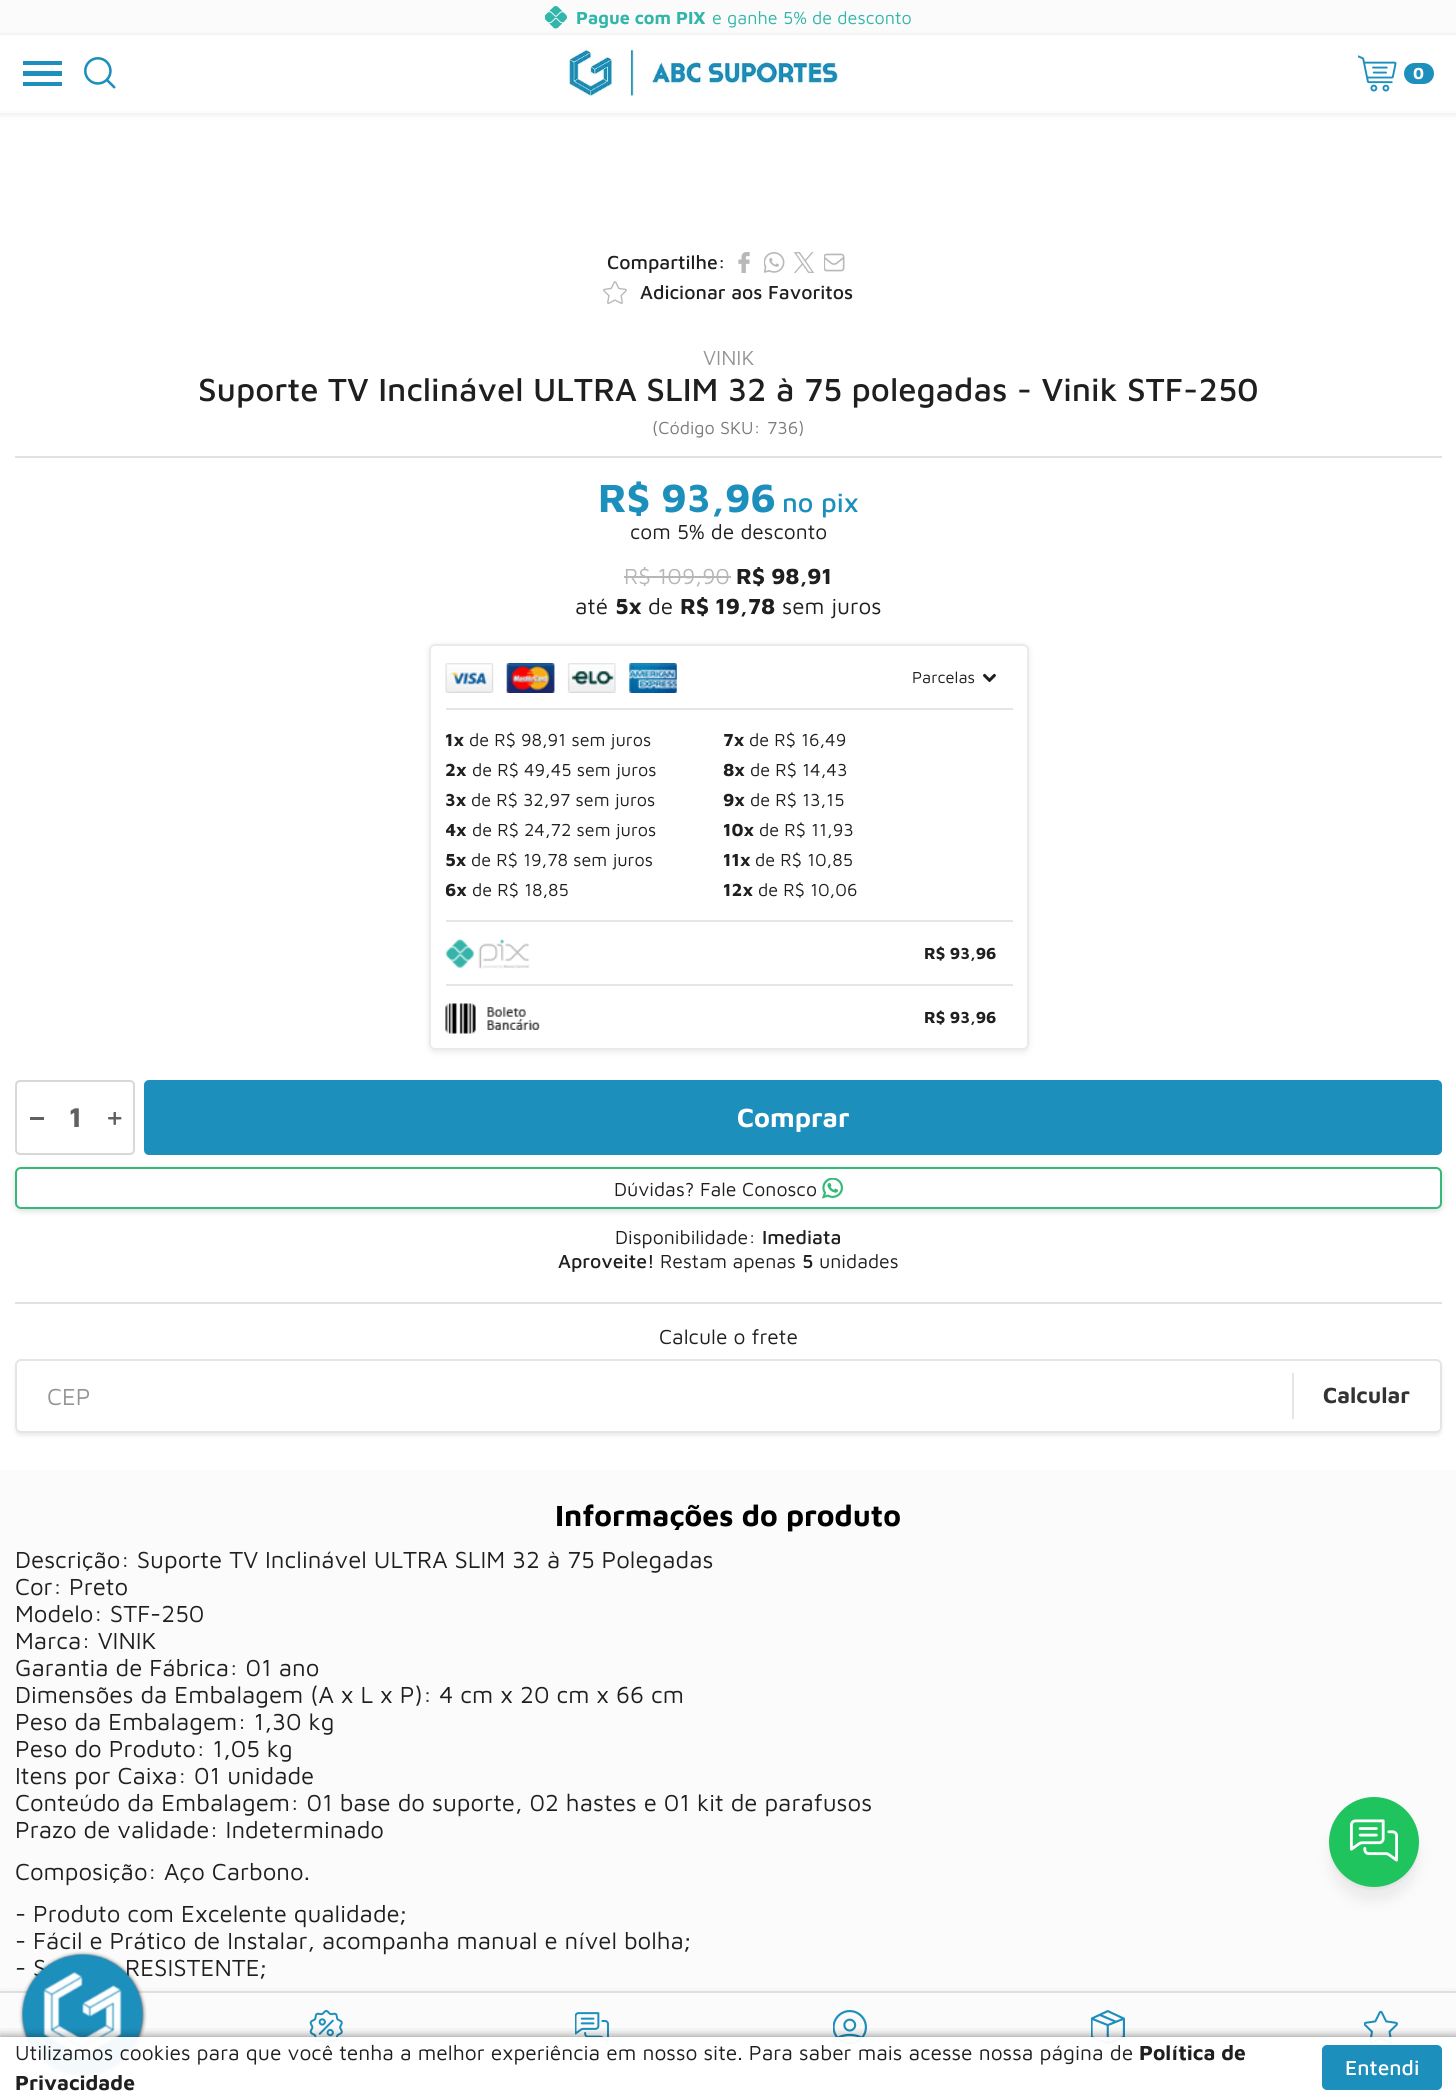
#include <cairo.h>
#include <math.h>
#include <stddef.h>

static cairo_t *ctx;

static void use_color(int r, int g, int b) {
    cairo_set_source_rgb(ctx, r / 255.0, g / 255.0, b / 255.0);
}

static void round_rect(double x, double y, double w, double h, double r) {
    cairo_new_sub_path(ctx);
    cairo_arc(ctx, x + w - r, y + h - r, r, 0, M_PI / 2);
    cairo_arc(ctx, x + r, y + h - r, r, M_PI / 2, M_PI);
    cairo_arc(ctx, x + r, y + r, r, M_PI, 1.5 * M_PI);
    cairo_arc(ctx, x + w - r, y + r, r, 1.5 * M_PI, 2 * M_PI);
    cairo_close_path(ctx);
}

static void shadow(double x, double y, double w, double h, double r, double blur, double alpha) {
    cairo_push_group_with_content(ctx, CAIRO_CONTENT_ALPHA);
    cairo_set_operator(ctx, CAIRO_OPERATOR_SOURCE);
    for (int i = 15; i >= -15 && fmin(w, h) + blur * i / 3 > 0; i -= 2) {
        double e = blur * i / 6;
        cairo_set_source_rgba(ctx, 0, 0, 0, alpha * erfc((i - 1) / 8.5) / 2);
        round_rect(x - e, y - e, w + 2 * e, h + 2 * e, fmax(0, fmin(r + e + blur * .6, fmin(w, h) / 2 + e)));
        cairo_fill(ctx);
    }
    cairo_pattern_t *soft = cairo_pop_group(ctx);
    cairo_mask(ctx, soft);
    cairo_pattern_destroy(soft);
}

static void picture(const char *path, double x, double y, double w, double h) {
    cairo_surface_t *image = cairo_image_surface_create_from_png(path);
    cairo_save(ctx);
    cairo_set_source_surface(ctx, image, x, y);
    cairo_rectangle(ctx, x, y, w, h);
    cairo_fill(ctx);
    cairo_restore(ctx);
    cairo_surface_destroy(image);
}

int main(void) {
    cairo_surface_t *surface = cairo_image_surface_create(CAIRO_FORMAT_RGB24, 1456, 2096);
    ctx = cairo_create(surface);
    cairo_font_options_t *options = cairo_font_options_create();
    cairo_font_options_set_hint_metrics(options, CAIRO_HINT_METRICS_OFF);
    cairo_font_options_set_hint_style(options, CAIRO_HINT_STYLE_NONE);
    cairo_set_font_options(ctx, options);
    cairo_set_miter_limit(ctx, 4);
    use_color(251, 251, 251);
    cairo_paint(ctx);
    picture("img1.png", 545, 6, 22, 23);
    cairo_select_font_face(ctx, "Maven Pro", CAIRO_FONT_SLANT_NORMAL, CAIRO_FONT_WEIGHT_BOLD);
    cairo_set_font_size(ctx, 18);
    use_color(50, 182, 170);
    cairo_move_to(ctx, 576, 24);
    cairo_show_text(ctx, "Pague com PIX");
    cairo_select_font_face(ctx, "Maven Pro", CAIRO_FONT_SLANT_NORMAL, CAIRO_FONT_WEIGHT_NORMAL);
    cairo_move_to(ctx, 712, 24);
    cairo_show_text(ctx, "e ganhe 5% de desconto");
    use_color(255, 255, 255);
    cairo_rectangle(ctx, 0, 113, 1456, 1357);
    cairo_fill(ctx);
    use_color(82, 82, 82);
    shadow(0, 36, 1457, 78, 0, 3, 0.13);
    use_color(255, 255, 255);
    cairo_rectangle(ctx, 0, 35, 1456, 76);
    cairo_fill(ctx);
    use_color(252, 252, 252);
    cairo_rectangle(ctx, 0, 111, 1456, 2);
    cairo_fill(ctx);
    use_color(29, 143, 189);
    cairo_rectangle(ctx, 23, 82, 39, 4);
    cairo_fill(ctx);
    cairo_rectangle(ctx, 23, 71, 39, 5);
    cairo_fill(ctx);
    cairo_rectangle(ctx, 23, 61, 39, 4);
    cairo_fill(ctx);
    picture("img2.png", 84, 57, 32, 32);
    picture("img3.png", 569, 46, 270, 51);
    picture("img4.png", 1358, 55, 39, 37);
    round_rect(1404, 63, 30, 21, 10.5);
    cairo_fill(ctx);
    cairo_select_font_face(ctx, "Maven Pro", CAIRO_FONT_SLANT_NORMAL, CAIRO_FONT_WEIGHT_BOLD);
    cairo_set_font_size(ctx, 16.5);
    use_color(255, 255, 255);
    cairo_move_to(ctx, 1413, 79);
    cairo_show_text(ctx, "0");
    cairo_select_font_face(ctx, "Maven Pro Medium", CAIRO_FONT_SLANT_NORMAL, CAIRO_FONT_WEIGHT_NORMAL);
    cairo_set_font_size(ctx, 19.5);
    use_color(32, 31, 31);
    cairo_move_to(ctx, 607, 269);
    cairo_show_text(ctx, "Compartilhe:");
    picture("img5.png", 738, 252, 12, 21);
    picture("img6.png", 764, 252, 21, 21);
    picture("img7.png", 794, 252, 21, 21);
    picture("img8.png", 824, 253, 21, 19);
    picture("img9.png", 603, 281, 24, 23);
    cairo_move_to(ctx, 640, 299);
    cairo_show_text(ctx, "Adicionar aos Favoritos");
    use_color(225, 225, 225);
    cairo_rectangle(ctx, 15, 456, 1427, 2);
    cairo_fill(ctx);
    cairo_select_font_face(ctx, "Maven Pro", CAIRO_FONT_SLANT_NORMAL, CAIRO_FONT_WEIGHT_NORMAL);
    cairo_set_font_size(ctx, 21);
    use_color(148, 148, 148);
    cairo_move_to(ctx, 703, 365);
    cairo_show_text(ctx, "VINIK");
    cairo_select_font_face(ctx, "Maven Pro Medium", CAIRO_FONT_SLANT_NORMAL, CAIRO_FONT_WEIGHT_NORMAL);
    cairo_set_font_size(ctx, 33);
    use_color(32, 31, 31);
    cairo_move_to(ctx, 198, 401);
    cairo_show_text(ctx, "Suporte TV Inclinável ULTRA SLIM 32 à 75 polegadas - Vinik STF-250");
    cairo_select_font_face(ctx, "Maven Pro", CAIRO_FONT_SLANT_NORMAL, CAIRO_FONT_WEIGHT_NORMAL);
    cairo_set_font_size(ctx, 18);
    use_color(123, 123, 123);
    cairo_move_to(ctx, 652, 434);
    cairo_show_text(ctx, "(Código SKU:");
    cairo_move_to(ctx, 767, 434);
    cairo_show_text(ctx, "736)");
    cairo_select_font_face(ctx, "Maven Pro", CAIRO_FONT_SLANT_NORMAL, CAIRO_FONT_WEIGHT_BOLD);
    cairo_set_font_size(ctx, 40.5);
    use_color(29, 143, 189);
    cairo_move_to(ctx, 598, 512);
    cairo_show_text(ctx, "R$ 93,96");
    cairo_select_font_face(ctx, "Maven Pro Medium", CAIRO_FONT_SLANT_NORMAL, CAIRO_FONT_WEIGHT_NORMAL);
    cairo_set_font_size(ctx, 27);
    cairo_move_to(ctx, 782, 512);
    cairo_show_text(ctx, "no pix");
    cairo_select_font_face(ctx, "Maven Pro", CAIRO_FONT_SLANT_NORMAL, CAIRO_FONT_WEIGHT_NORMAL);
    cairo_set_font_size(ctx, 21);
    use_color(32, 31, 31);
    cairo_move_to(ctx, 630, 539);
    cairo_show_text(ctx, "com 5% de desconto");
    cairo_set_font_size(ctx, 22.5);
    use_color(183, 183, 183);
    cairo_move_to(ctx, 624, 584);
    cairo_show_text(ctx, "R$ 109,90");
    cairo_rectangle(ctx, 624, 576, 107, 2);
    cairo_fill(ctx);
    cairo_select_font_face(ctx, "Maven Pro", CAIRO_FONT_SLANT_NORMAL, CAIRO_FONT_WEIGHT_BOLD);
    use_color(32, 31, 31);
    cairo_move_to(ctx, 736, 584);
    cairo_show_text(ctx, "R$ 98,91");
    cairo_select_font_face(ctx, "Maven Pro", CAIRO_FONT_SLANT_NORMAL, CAIRO_FONT_WEIGHT_NORMAL);
    cairo_move_to(ctx, 575, 614);
    cairo_show_text(ctx, "até");
    cairo_select_font_face(ctx, "Maven Pro", CAIRO_FONT_SLANT_NORMAL, CAIRO_FONT_WEIGHT_BOLD);
    cairo_move_to(ctx, 615, 614);
    cairo_show_text(ctx, "5x");
    cairo_select_font_face(ctx, "Maven Pro", CAIRO_FONT_SLANT_NORMAL, CAIRO_FONT_WEIGHT_NORMAL);
    cairo_move_to(ctx, 648, 614);
    cairo_show_text(ctx, "de");
    cairo_select_font_face(ctx, "Maven Pro", CAIRO_FONT_SLANT_NORMAL, CAIRO_FONT_WEIGHT_BOLD);
    cairo_move_to(ctx, 680, 614);
    cairo_show_text(ctx, "R$ 19,78");
    cairo_select_font_face(ctx, "Maven Pro", CAIRO_FONT_SLANT_NORMAL, CAIRO_FONT_WEIGHT_NORMAL);
    cairo_move_to(ctx, 782, 614);
    cairo_show_text(ctx, "sem juros");
    cairo_save(ctx);
    cairo_set_fill_rule(ctx, CAIRO_FILL_RULE_EVEN_ODD);
    cairo_new_path(ctx);
    cairo_move_to(ctx, 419, 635);
    cairo_line_to(ctx, 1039, 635);
    cairo_line_to(ctx, 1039, 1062);
    cairo_line_to(ctx, 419, 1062);
    cairo_close_path(ctx);
    cairo_move_to(ctx, 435, 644);
    cairo_line_to(ctx, 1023, 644);
    cairo_curve_to(ctx, 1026.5, 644, 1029, 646.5, 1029, 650);
    cairo_line_to(ctx, 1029, 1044);
    cairo_curve_to(ctx, 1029, 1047.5, 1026.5, 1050, 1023, 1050);
    cairo_line_to(ctx, 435, 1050);
    cairo_curve_to(ctx, 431.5, 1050, 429, 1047.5, 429, 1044);
    cairo_line_to(ctx, 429, 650);
    cairo_curve_to(ctx, 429, 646.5, 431.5, 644, 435, 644);
    cairo_close_path(ctx);
    cairo_clip(ctx);
    use_color(177, 177, 177);
    shadow(429, 645, 600, 407, 6, 3, 0.28);
    cairo_restore(ctx);
    round_rect(430, 645, 598, 404, 5);
    use_color(234, 234, 234);
    cairo_stroke(ctx);
    picture("img10.png", 445, 663, 232, 30);
    cairo_set_font_size(ctx, 16.5);
    use_color(32, 31, 31);
    cairo_move_to(ctx, 912, 683);
    cairo_show_text(ctx, "Parcelas");
    picture("img11.png", 983, 673, 13, 9);
    use_color(229, 229, 229);
    cairo_rectangle(ctx, 446, 708, 567, 2);
    cairo_fill(ctx);
    cairo_save(ctx);
    cairo_rectangle(ctx, 446, 710, 567, 210);
    cairo_clip(ctx);
    cairo_select_font_face(ctx, "Maven Pro", CAIRO_FONT_SLANT_NORMAL, CAIRO_FONT_WEIGHT_BOLD);
    cairo_set_font_size(ctx, 18);
    use_color(32, 31, 31);
    cairo_move_to(ctx, 445, 746);
    cairo_show_text(ctx, "1x");
    cairo_restore(ctx);
    cairo_set_font_size(ctx, 18);
    use_color(32, 31, 31);
    cairo_move_to(ctx, 469, 746);
    cairo_show_text(ctx, "de R$ 98,91 sem juros");
    cairo_select_font_face(ctx, "Maven Pro", CAIRO_FONT_SLANT_NORMAL, CAIRO_FONT_WEIGHT_BOLD);
    cairo_move_to(ctx, 445, 776);
    cairo_show_text(ctx, "2x");
    cairo_select_font_face(ctx, "Maven Pro", CAIRO_FONT_SLANT_NORMAL, CAIRO_FONT_WEIGHT_NORMAL);
    cairo_move_to(ctx, 472, 776);
    cairo_show_text(ctx, "de R$ 49,45 sem juros");
    cairo_select_font_face(ctx, "Maven Pro", CAIRO_FONT_SLANT_NORMAL, CAIRO_FONT_WEIGHT_BOLD);
    cairo_move_to(ctx, 445, 806);
    cairo_show_text(ctx, "3x");
    cairo_select_font_face(ctx, "Maven Pro", CAIRO_FONT_SLANT_NORMAL, CAIRO_FONT_WEIGHT_NORMAL);
    cairo_move_to(ctx, 471, 806);
    cairo_show_text(ctx, "de R$ 32,97 sem juros");
    cairo_save(ctx);
    cairo_rectangle(ctx, 446, 710, 567, 210);
    cairo_clip(ctx);
    cairo_select_font_face(ctx, "Maven Pro", CAIRO_FONT_SLANT_NORMAL, CAIRO_FONT_WEIGHT_BOLD);
    cairo_move_to(ctx, 445, 836);
    cairo_show_text(ctx, "4x");
    cairo_restore(ctx);
    cairo_move_to(ctx, 472, 836);
    cairo_show_text(ctx, "de R$ 24,72 sem juros");
    cairo_select_font_face(ctx, "Maven Pro", CAIRO_FONT_SLANT_NORMAL, CAIRO_FONT_WEIGHT_BOLD);
    cairo_move_to(ctx, 445, 866);
    cairo_show_text(ctx, "5x");
    cairo_select_font_face(ctx, "Maven Pro", CAIRO_FONT_SLANT_NORMAL, CAIRO_FONT_WEIGHT_NORMAL);
    cairo_move_to(ctx, 471, 866);
    cairo_show_text(ctx, "de R$ 19,78 sem juros");
    cairo_save(ctx);
    cairo_rectangle(ctx, 446, 710, 567, 210);
    cairo_clip(ctx);
    cairo_select_font_face(ctx, "Maven Pro", CAIRO_FONT_SLANT_NORMAL, CAIRO_FONT_WEIGHT_BOLD);
    cairo_move_to(ctx, 445, 896);
    cairo_show_text(ctx, "6x");
    cairo_restore(ctx);
    cairo_move_to(ctx, 472, 896);
    cairo_show_text(ctx, "de R$ 18,85");
    cairo_select_font_face(ctx, "Maven Pro", CAIRO_FONT_SLANT_NORMAL, CAIRO_FONT_WEIGHT_BOLD);
    cairo_move_to(ctx, 723, 746);
    cairo_show_text(ctx, "7x");
    cairo_select_font_face(ctx, "Maven Pro", CAIRO_FONT_SLANT_NORMAL, CAIRO_FONT_WEIGHT_NORMAL);
    cairo_move_to(ctx, 749, 746);
    cairo_show_text(ctx, "de R$ 16,49");
    cairo_select_font_face(ctx, "Maven Pro", CAIRO_FONT_SLANT_NORMAL, CAIRO_FONT_WEIGHT_BOLD);
    cairo_move_to(ctx, 723, 776);
    cairo_show_text(ctx, "8x");
    cairo_select_font_face(ctx, "Maven Pro", CAIRO_FONT_SLANT_NORMAL, CAIRO_FONT_WEIGHT_NORMAL);
    cairo_move_to(ctx, 750, 776);
    cairo_show_text(ctx, "de R$ 14,43");
    cairo_select_font_face(ctx, "Maven Pro", CAIRO_FONT_SLANT_NORMAL, CAIRO_FONT_WEIGHT_BOLD);
    cairo_move_to(ctx, 723, 806);
    cairo_show_text(ctx, "9x");
    cairo_select_font_face(ctx, "Maven Pro", CAIRO_FONT_SLANT_NORMAL, CAIRO_FONT_WEIGHT_NORMAL);
    cairo_move_to(ctx, 750, 806);
    cairo_show_text(ctx, "de R$ 13,15");
    cairo_select_font_face(ctx, "Maven Pro", CAIRO_FONT_SLANT_NORMAL, CAIRO_FONT_WEIGHT_BOLD);
    cairo_move_to(ctx, 723, 836);
    cairo_show_text(ctx, "10x");
    cairo_select_font_face(ctx, "Maven Pro", CAIRO_FONT_SLANT_NORMAL, CAIRO_FONT_WEIGHT_NORMAL);
    cairo_move_to(ctx, 759, 836);
    cairo_show_text(ctx, "de R$ 11,93");
    cairo_select_font_face(ctx, "Maven Pro", CAIRO_FONT_SLANT_NORMAL, CAIRO_FONT_WEIGHT_BOLD);
    cairo_move_to(ctx, 723, 866);
    cairo_show_text(ctx, "11x");
    cairo_select_font_face(ctx, "Maven Pro", CAIRO_FONT_SLANT_NORMAL, CAIRO_FONT_WEIGHT_NORMAL);
    cairo_move_to(ctx, 755, 866);
    cairo_show_text(ctx, "de R$ 10,85");
    cairo_select_font_face(ctx, "Maven Pro", CAIRO_FONT_SLANT_NORMAL, CAIRO_FONT_WEIGHT_BOLD);
    cairo_move_to(ctx, 723, 896);
    cairo_show_text(ctx, "12x");
    cairo_select_font_face(ctx, "Maven Pro", CAIRO_FONT_SLANT_NORMAL, CAIRO_FONT_WEIGHT_NORMAL);
    cairo_move_to(ctx, 758, 896);
    cairo_show_text(ctx, "de R$ 10,06");
    use_color(229, 229, 229);
    cairo_rectangle(ctx, 446, 920, 567, 2);
    cairo_fill(ctx);
    picture("img12.png", 445, 939, 85, 30);
    cairo_select_font_face(ctx, "Maven Pro", CAIRO_FONT_SLANT_NORMAL, CAIRO_FONT_WEIGHT_BOLD);
    cairo_set_font_size(ctx, 16.5);
    use_color(32, 31, 31);
    cairo_move_to(ctx, 924, 959);
    cairo_show_text(ctx, "R$ 93,96");
    use_color(229, 229, 229);
    cairo_rectangle(ctx, 446, 984, 567, 2);
    cairo_fill(ctx);
    picture("img13.png", 445, 1003, 95, 31);
    use_color(32, 31, 31);
    cairo_move_to(ctx, 924, 1023);
    cairo_show_text(ctx, "R$ 93,96");
    round_rect(16, 1081, 118, 73, 4);
    use_color(216, 216, 216);
    cairo_stroke(ctx);
    use_color(97, 97, 97);
    cairo_rectangle(ctx, 30, 1117, 14, 3);
    cairo_fill(ctx);
    cairo_set_font_size(ctx, 28);
    cairo_move_to(ctx, 69, 1127);
    cairo_show_text(ctx, "1");
    picture("img14.png", 108, 1112, 14, 13);
    use_color(29, 143, 189);
    round_rect(144, 1080, 1298, 75, 5);
    cairo_fill(ctx);
    cairo_set_font_size(ctx, 27);
    use_color(255, 255, 255);
    cairo_move_to(ctx, 737, 1127);
    cairo_show_text(ctx, "Comprar");
    use_color(177, 177, 177);
    shadow(15, 1169, 1427, 42, 6, 3, 0.46);
    use_color(255, 255, 255);
    round_rect(16, 1168, 1425, 40, 5);
    cairo_fill_preserve(ctx);
    use_color(51, 186, 121);
    cairo_stroke(ctx);
    cairo_select_font_face(ctx, "Maven Pro", CAIRO_FONT_SLANT_NORMAL, CAIRO_FONT_WEIGHT_NORMAL);
    cairo_set_font_size(ctx, 19.5);
    use_color(32, 31, 31);
    cairo_move_to(ctx, 614, 1196);
    cairo_show_text(ctx, "Dúvidas? Fale Conosco");
    picture("img15.png", 822, 1178, 21, 21);
    cairo_move_to(ctx, 615, 1244);
    cairo_show_text(ctx, "Disponibilidade:");
    cairo_select_font_face(ctx, "Maven Pro Medium", CAIRO_FONT_SLANT_NORMAL, CAIRO_FONT_WEIGHT_NORMAL);
    cairo_move_to(ctx, 762, 1244);
    cairo_show_text(ctx, "Imediata");
    cairo_move_to(ctx, 558, 1268);
    cairo_show_text(ctx, "Aproveite!");
    cairo_select_font_face(ctx, "Maven Pro", CAIRO_FONT_SLANT_NORMAL, CAIRO_FONT_WEIGHT_NORMAL);
    cairo_move_to(ctx, 660, 1268);
    cairo_show_text(ctx, "Restam apenas");
    cairo_select_font_face(ctx, "Maven Pro Medium", CAIRO_FONT_SLANT_NORMAL, CAIRO_FONT_WEIGHT_NORMAL);
    cairo_move_to(ctx, 802, 1268);
    cairo_show_text(ctx, "5");
    cairo_select_font_face(ctx, "Maven Pro", CAIRO_FONT_SLANT_NORMAL, CAIRO_FONT_WEIGHT_NORMAL);
    cairo_move_to(ctx, 819, 1268);
    cairo_show_text(ctx, "unidades");
    use_color(225, 225, 225);
    cairo_rectangle(ctx, 15, 1302, 1427, 2);
    cairo_fill(ctx);
    cairo_set_font_size(ctx, 21);
    use_color(32, 31, 31);
    cairo_move_to(ctx, 659, 1344);
    cairo_show_text(ctx, "Calcule o frete");
    cairo_save(ctx);
    cairo_set_fill_rule(ctx, CAIRO_FILL_RULE_EVEN_ODD);
    cairo_new_path(ctx);
    cairo_move_to(ctx, 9, 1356);
    cairo_line_to(ctx, 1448, 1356);
    cairo_line_to(ctx, 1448, 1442);
    cairo_line_to(ctx, 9, 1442);
    cairo_close_path(ctx);
    cairo_move_to(ctx, 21, 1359);
    cairo_line_to(ctx, 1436, 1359);
    cairo_curve_to(ctx, 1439.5, 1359, 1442, 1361.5, 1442, 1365);
    cairo_line_to(ctx, 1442, 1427);
    cairo_curve_to(ctx, 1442, 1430.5, 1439.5, 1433, 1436, 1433);
    cairo_line_to(ctx, 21, 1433);
    cairo_curve_to(ctx, 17.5, 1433, 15, 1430.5, 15, 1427);
    cairo_line_to(ctx, 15, 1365);
    cairo_curve_to(ctx, 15, 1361.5, 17.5, 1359, 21, 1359);
    cairo_close_path(ctx);
    cairo_clip(ctx);
    use_color(205, 205, 205);
    shadow(15, 1362, 1427, 74, 6, 1.5, 0.35);
    cairo_restore(ctx);
    round_rect(16, 1360, 1425, 72, 5);
    use_color(229, 229, 229);
    cairo_stroke(ctx);
    use_color(255, 255, 255);
    round_rect(17, 1361, 1275, 70, 5);
    cairo_fill(ctx);
    cairo_set_font_size(ctx, 24);
    use_color(148, 148, 148);
    cairo_move_to(ctx, 47, 1405);
    cairo_show_text(ctx, "CEP");
    use_color(229, 229, 229);
    cairo_rectangle(ctx, 1292, 1373, 2, 46);
    cairo_fill(ctx);
    cairo_select_font_face(ctx, "Maven Pro", CAIRO_FONT_SLANT_NORMAL, CAIRO_FONT_WEIGHT_BOLD);
    cairo_set_font_size(ctx, 22.5);
    use_color(51, 51, 51);
    cairo_move_to(ctx, 1323, 1403);
    cairo_show_text(ctx, "Calcular");
    cairo_set_font_size(ctx, 30);
    use_color(0, 0, 0);
    cairo_move_to(ctx, 555, 1526);
    cairo_show_text(ctx, "Informações do produto");
    cairo_select_font_face(ctx, "Maven Pro", CAIRO_FONT_SLANT_NORMAL, CAIRO_FONT_WEIGHT_NORMAL);
    cairo_set_font_size(ctx, 24);
    use_color(32, 31, 31);
    cairo_move_to(ctx, 15, 1568);
    cairo_show_text(ctx, "Descrição: Suporte TV Inclinável ULTRA SLIM 32 à 75 Polegadas");
    cairo_move_to(ctx, 15, 1595);
    cairo_show_text(ctx, "Cor: Preto");
    cairo_move_to(ctx, 15, 1622);
    cairo_show_text(ctx, "Modelo: STF-250");
    cairo_move_to(ctx, 15, 1649);
    cairo_show_text(ctx, "Marca: VINIK");
    cairo_move_to(ctx, 15, 1676);
    cairo_show_text(ctx, "Garantia de Fábrica: 01 ano");
    cairo_move_to(ctx, 15, 1703);
    cairo_show_text(ctx, "Dimensões da Embalagem (A x L x P): 4 cm x 20 cm x 66 cm");
    cairo_move_to(ctx, 15, 1730);
    cairo_show_text(ctx, "Peso da Embalagem: 1,30 kg");
    cairo_move_to(ctx, 15, 1757);
    cairo_show_text(ctx, "Peso do Produto: 1,05 kg");
    cairo_move_to(ctx, 15, 1784);
    cairo_show_text(ctx, "Itens por Caixa: 01 unidade");
    cairo_move_to(ctx, 15, 1811);
    cairo_show_text(ctx, "Conteúdo da Embalagem: 01 base do suporte, 02 hastes e 01 kit de parafusos");
    cairo_move_to(ctx, 15, 1838);
    cairo_show_text(ctx, "Prazo de validade: Indeterminado");
    cairo_move_to(ctx, 15, 1880);
    cairo_show_text(ctx, "Composição: Aço Carbono.");
    cairo_move_to(ctx, 15, 1922);
    cairo_show_text(ctx, "- Produto com Excelente qualidade;");
    cairo_move_to(ctx, 15, 1949);
    cairo_show_text(ctx, "- Fácil e Prático de Instalar, acompanha manual e nível bolha;");
    cairo_move_to(ctx, 15, 1976);
    cairo_show_text(ctx, "- S");
    cairo_move_to(ctx, 125, 1976);
    cairo_show_text(ctx, "RESISTENTE;");
    use_color(103, 103, 103);
    shadow(1329, 1812, 90, 90, 45, 6, 0.1);
    use_color(0, 0, 0);
    shadow(1329, 1800, 90, 90, 45, 1, 0.04);
    use_color(31, 196, 94);
    cairo_arc(ctx, 1374, 1842, 45, 0, 2 * M_PI);
    cairo_fill(ctx);
    picture("img16.png", 1350, 1819, 48, 43);
    use_color(82, 82, 82);
    shadow(0, 1991, 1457, 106, 0, 3, 0.08);
    use_color(251, 251, 251);
    cairo_rectangle(ctx, 0, 1993, 1456, 103);
    cairo_fill(ctx);
    use_color(223, 223, 223);
    cairo_rectangle(ctx, 0, 1991, 1456, 2);
    cairo_fill(ctx);
    use_color(0, 0, 0);
    shadow(23, 1955, 120, 120, 60, 2, 0.75);
    picture("img17.png", 22, 1954, 121, 121);
    picture("img18.png", 309, 2010, 34, 35);
    picture("img19.png", 575, 2012, 34, 31);
    picture("img20.png", 833, 2010, 34, 35);
    picture("img21.png", 1091, 2010, 34, 35);
    picture("img22.png", 1364, 2010, 34, 34);
    cairo_save(ctx);
    cairo_rectangle(ctx, 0, 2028, 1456, 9);
    cairo_clip(ctx);
    shadow(0, 2037, 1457, 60, 0, 5, 0.5);
    cairo_restore(ctx);
    cairo_set_source_rgba(ctx, 1, 1, 1, 0.95);
    cairo_rectangle(ctx, 0, 2037, 1456, 59);
    cairo_fill(ctx);
    cairo_set_font_size(ctx, 21);
    use_color(32, 31, 31);
    cairo_move_to(ctx, 15, 2060);
    cairo_show_text(ctx, "Utilizamos cookies para que você tenha a melhor experiência em nosso site. Para saber mais acesse nossa página de");
    cairo_select_font_face(ctx, "Maven Pro", CAIRO_FONT_SLANT_NORMAL, CAIRO_FONT_WEIGHT_BOLD);
    cairo_move_to(ctx, 1139, 2060);
    cairo_show_text(ctx, "Política de");
    cairo_move_to(ctx, 15, 2090);
    cairo_show_text(ctx, "Privacidade");
    use_color(29, 143, 189);
    round_rect(1322, 2045, 120, 45, 5);
    cairo_fill(ctx);
    cairo_select_font_face(ctx, "Maven Pro Medium", CAIRO_FONT_SLANT_NORMAL, CAIRO_FONT_WEIGHT_NORMAL);
    use_color(255, 255, 255);
    cairo_move_to(ctx, 1345, 2075);
    cairo_show_text(ctx, "Entendi");
    cairo_surface_write_to_png(surface, "result.png");
    cairo_font_options_destroy(options);
    cairo_destroy(ctx);
    cairo_surface_destroy(surface);
    return 0;
}
